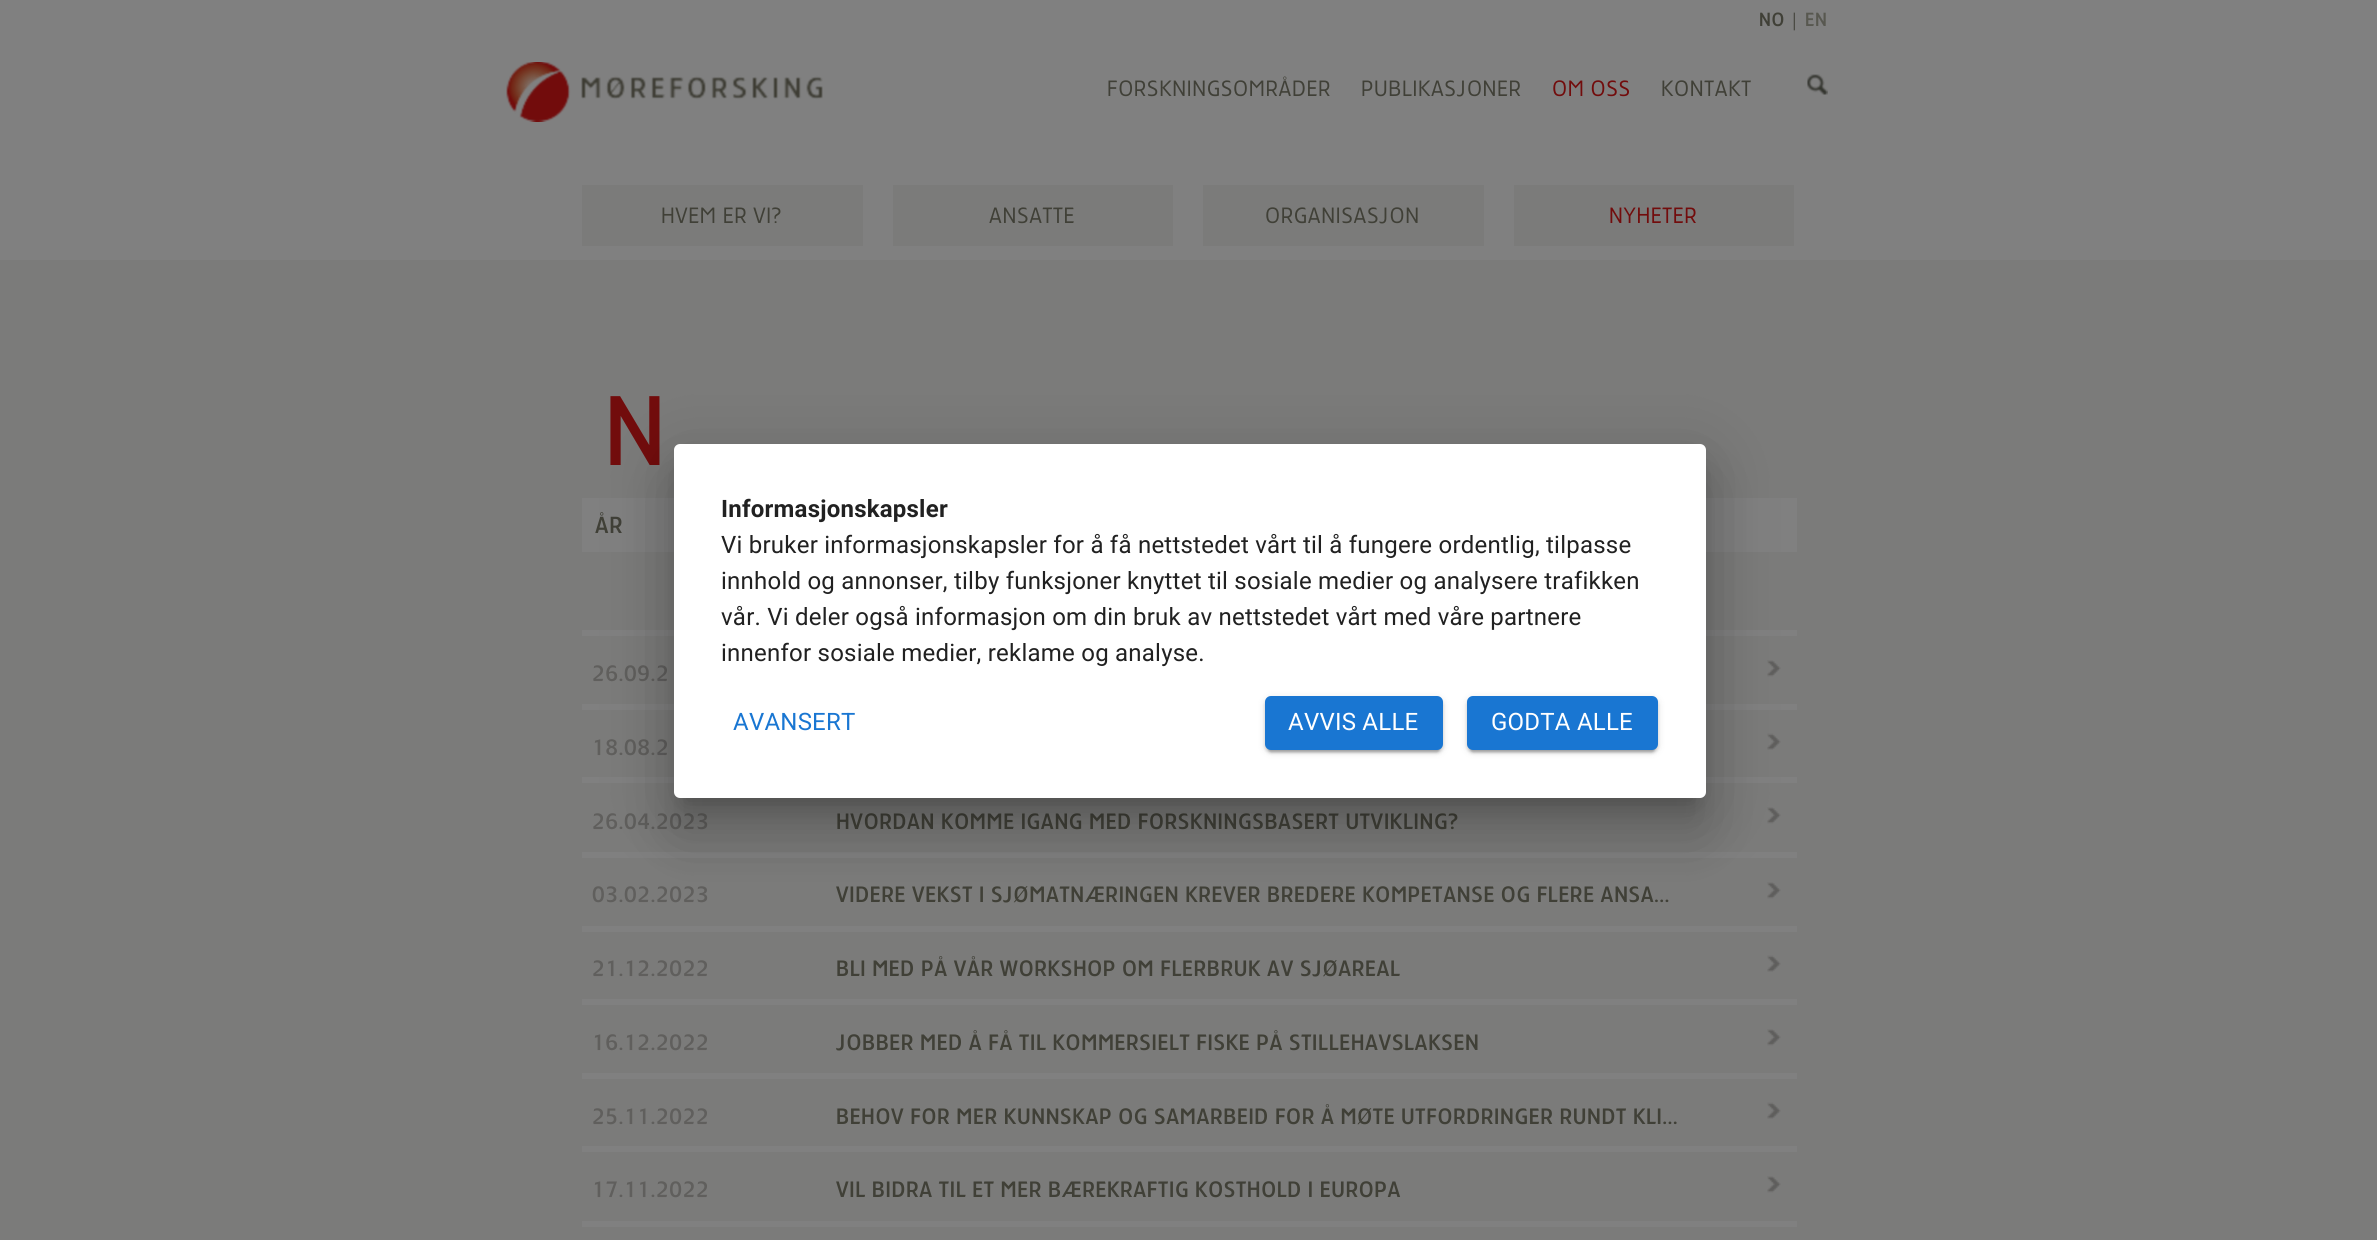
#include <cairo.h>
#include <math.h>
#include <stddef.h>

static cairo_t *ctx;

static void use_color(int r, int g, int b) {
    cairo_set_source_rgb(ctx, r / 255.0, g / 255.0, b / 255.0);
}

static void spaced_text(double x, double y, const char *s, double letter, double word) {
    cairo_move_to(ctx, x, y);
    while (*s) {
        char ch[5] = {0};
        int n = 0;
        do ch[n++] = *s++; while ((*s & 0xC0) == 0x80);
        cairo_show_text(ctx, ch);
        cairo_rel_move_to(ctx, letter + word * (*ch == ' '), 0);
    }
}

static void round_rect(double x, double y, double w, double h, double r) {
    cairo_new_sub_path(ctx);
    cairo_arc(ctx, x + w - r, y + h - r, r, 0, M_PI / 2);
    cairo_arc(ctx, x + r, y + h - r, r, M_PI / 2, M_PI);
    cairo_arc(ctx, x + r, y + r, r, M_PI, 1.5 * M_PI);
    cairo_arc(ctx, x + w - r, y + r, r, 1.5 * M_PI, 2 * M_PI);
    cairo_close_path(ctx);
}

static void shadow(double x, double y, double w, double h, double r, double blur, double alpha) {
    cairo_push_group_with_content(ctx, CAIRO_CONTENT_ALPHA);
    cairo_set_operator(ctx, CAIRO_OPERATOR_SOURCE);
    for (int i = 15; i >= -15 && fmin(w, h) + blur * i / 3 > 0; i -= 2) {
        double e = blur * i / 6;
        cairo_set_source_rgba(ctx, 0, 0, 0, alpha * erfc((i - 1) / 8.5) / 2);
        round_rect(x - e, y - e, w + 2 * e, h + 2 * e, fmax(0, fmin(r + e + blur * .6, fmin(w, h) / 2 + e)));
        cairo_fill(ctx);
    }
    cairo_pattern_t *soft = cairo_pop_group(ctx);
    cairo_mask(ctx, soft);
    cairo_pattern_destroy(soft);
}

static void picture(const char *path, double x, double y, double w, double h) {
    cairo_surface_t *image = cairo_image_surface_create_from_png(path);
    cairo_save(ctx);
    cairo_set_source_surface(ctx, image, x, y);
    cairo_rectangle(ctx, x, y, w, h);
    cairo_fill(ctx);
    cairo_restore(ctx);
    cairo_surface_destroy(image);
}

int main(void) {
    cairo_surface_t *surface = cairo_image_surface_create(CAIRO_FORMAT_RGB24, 2377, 1240);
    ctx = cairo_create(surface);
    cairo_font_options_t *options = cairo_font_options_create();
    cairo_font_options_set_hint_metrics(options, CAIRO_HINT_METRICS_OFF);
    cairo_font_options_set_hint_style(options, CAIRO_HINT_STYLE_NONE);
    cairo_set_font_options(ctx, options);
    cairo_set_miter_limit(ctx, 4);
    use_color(128, 128, 128);
    cairo_paint(ctx);
    cairo_select_font_face(ctx, "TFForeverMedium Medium", CAIRO_FONT_SLANT_NORMAL, CAIRO_FONT_WEIGHT_NORMAL);
    cairo_set_font_size(ctx, 18);
    use_color(64, 64, 55);
    spaced_text(1759, 26, "NO", 0.75, 0);
    cairo_set_font_size(ctx, 21);
    spaced_text(1792, 29, "|", 0.75, 0);
    cairo_set_font_size(ctx, 18);
    use_color(88, 88, 80);
    spaced_text(1805, 26, "EN", 0.75, 0);
    picture("img1.png", 506, 62, 317, 60);
    cairo_select_font_face(ctx, "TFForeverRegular", CAIRO_FONT_SLANT_NORMAL, CAIRO_FONT_WEIGHT_NORMAL);
    cairo_set_font_size(ctx, 21);
    use_color(64, 64, 55);
    spaced_text(1107, 96, "FORSKNINGSOMRÅDER", 0.75, 0);
    spaced_text(1361, 96, "PUBLIKASJONER", 0.75, 0);
    use_color(114, 12, 12);
    spaced_text(1552, 96, "OM OSS", 0.75, 0);
    use_color(64, 64, 55);
    spaced_text(1661, 96, "KONTAKT", 0.75, 0);
    picture("img2.png", 1807, 74, 21, 21);
    use_color(123, 123, 122);
    cairo_rectangle(ctx, 0, 260, 2377, 980);
    cairo_fill(ctx);
    cairo_rectangle(ctx, 582, 185, 281, 61);
    cairo_fill(ctx);
    use_color(64, 64, 55);
    spaced_text(661, 223, "HVEM ER VI?", 0.75, 0);
    use_color(123, 123, 122);
    cairo_rectangle(ctx, 893, 185, 280, 61);
    cairo_fill(ctx);
    use_color(64, 64, 55);
    spaced_text(989, 223, "ANSATTE", 0.75, 0);
    use_color(123, 123, 122);
    cairo_rectangle(ctx, 1203, 185, 281, 61);
    cairo_fill(ctx);
    use_color(64, 64, 55);
    spaced_text(1265, 223, "ORGANISASJON", 0.75, 0);
    use_color(123, 123, 122);
    cairo_rectangle(ctx, 1514, 185, 280, 61);
    cairo_fill(ctx);
    use_color(114, 12, 12);
    spaced_text(1609, 223, "NYHETER", 0.75, 0);
    cairo_select_font_face(ctx, "TFForeverRegular", CAIRO_FONT_SLANT_NORMAL, CAIRO_FONT_WEIGHT_BOLD);
    cairo_set_font_size(ctx, 90);
    spaced_text(604, 465, "N", 0.75, 0);
    use_color(128, 128, 128);
    cairo_rectangle(ctx, 582, 498, 92, 54);
    cairo_fill(ctx);
    cairo_select_font_face(ctx, "TFForeverMedium Medium", CAIRO_FONT_SLANT_NORMAL, CAIRO_FONT_WEIGHT_NORMAL);
    cairo_set_font_size(ctx, 22);
    use_color(64, 64, 55);
    spaced_text(595, 533, "ÅR", 0.75, 0);
    use_color(128, 128, 128);
    cairo_rectangle(ctx, 1706, 498, 91, 54);
    cairo_fill(ctx);
    picture("img3.png", 1767, 660, 14, 17);
    cairo_rectangle(ctx, 582, 630, 1215, 6);
    cairo_fill(ctx);
    cairo_set_font_size(ctx, 21);
    use_color(96, 95, 93);
    spaced_text(592, 681, "26.09.2", 0.75, 0);
    picture("img4.png", 1767, 733, 14, 17);
    use_color(128, 128, 128);
    cairo_rectangle(ctx, 582, 704, 1215, 6);
    cairo_fill(ctx);
    use_color(96, 95, 93);
    spaced_text(592, 755, "18.08.2", 0.75, 0);
    picture("img3.png", 1767, 807, 14, 17);
    use_color(128, 128, 128);
    cairo_rectangle(ctx, 582, 777, 1215, 6);
    cairo_fill(ctx);
    use_color(96, 95, 93);
    spaced_text(592, 829, "26.04.2023", 0.75, 0);
    use_color(64, 64, 55);
    spaced_text(836, 829, "HVORDAN KOMME IGANG MED FORSKNINGSBASERT UTVIKLING?", 0.75, 0);
    picture("img3.png", 1767, 882, 14, 17);
    use_color(128, 128, 128);
    cairo_rectangle(ctx, 582, 852, 1215, 6);
    cairo_fill(ctx);
    use_color(96, 95, 93);
    spaced_text(592, 902, "03.02.2023", 0.75, 0);
    use_color(64, 64, 55);
    spaced_text(836, 902, "VIDERE VEKST I SJØMATNÆRINGEN KREVER BREDERE KOMPETANSE OG FLERE ANSA...", 0.75, 0);
    picture("img4.png", 1767, 955, 14, 17);
    use_color(128, 128, 128);
    cairo_rectangle(ctx, 582, 926, 1215, 6);
    cairo_fill(ctx);
    use_color(96, 95, 93);
    spaced_text(592, 976, "21.12.2022", 0.75, 0);
    use_color(64, 64, 55);
    spaced_text(836, 976, "BLI MED PÅ VÅR WORKSHOP OM FLERBRUK AV SJØAREAL", 0.75, 0);
    picture("img3.png", 1767, 1029, 14, 17);
    use_color(128, 128, 128);
    cairo_rectangle(ctx, 582, 999, 1215, 6);
    cairo_fill(ctx);
    use_color(96, 95, 93);
    spaced_text(592, 1050, "16.12.2022", 0.75, 0);
    use_color(64, 64, 55);
    spaced_text(836, 1050, "JOBBER MED Å FÅ TIL KOMMERSIELT FISKE PÅ STILLEHAVSLAKSEN", 0.75, 0);
    picture("img4.png", 1767, 1102, 14, 17);
    use_color(128, 128, 128);
    cairo_rectangle(ctx, 582, 1073, 1215, 6);
    cairo_fill(ctx);
    use_color(96, 95, 93);
    spaced_text(592, 1124, "25.11.2022", 0.75, 0);
    use_color(64, 64, 55);
    spaced_text(836, 1124, "BEHOV FOR MER KUNNSKAP OG SAMARBEID FOR Å MØTE UTFORDRINGER RUNDT KLI...", 0.75, 0);
    picture("img3.png", 1767, 1176, 14, 17);
    use_color(128, 128, 128);
    cairo_rectangle(ctx, 582, 1146, 1215, 6);
    cairo_fill(ctx);
    use_color(96, 95, 93);
    spaced_text(592, 1197, "17.11.2022", 0.75, 0);
    use_color(64, 64, 55);
    spaced_text(836, 1197, "VIL BIDRA TIL ET MER BÆREKRAFTIG KOSTHOLD I EUROPA", 0.75, 0);
    use_color(128, 128, 128);
    cairo_rectangle(ctx, 582, 1221, 1215, 6);
    cairo_fill(ctx);
    use_color(0, 0, 0);
    shadow(662, 446, 1056, 378, 18, 34.5, 0.12);
    shadow(669, 476, 1041, 363, 11, 28.5, 0.14);
    shadow(684, 471, 1011, 333, 0, 11, 0.2);
    use_color(255, 255, 255);
    round_rect(674, 444, 1032, 354, 6);
    cairo_fill(ctx);
    cairo_select_font_face(ctx, "Roboto", CAIRO_FONT_SLANT_NORMAL, CAIRO_FONT_WEIGHT_BOLD);
    cairo_set_font_size(ctx, 24);
    use_color(33, 33, 33);
    spaced_text(721, 517, "Informasjonskapsler", 0.23, 0);
    cairo_select_font_face(ctx, "Roboto", CAIRO_FONT_SLANT_NORMAL, CAIRO_FONT_WEIGHT_NORMAL);
    spaced_text(721, 553, "Vi bruker informasjonskapsler for å få nettstedet vårt til å fungere ordentlig, tilpasse", 0.23, 0);
    spaced_text(721, 589, "innhold og annonser, tilby funksjoner knyttet til sosiale medier og analysere trafikken", 0.23, 0);
    spaced_text(721, 625, "vår. Vi deler også informasjon om din bruk av nettstedet vårt med våre partnere", 0.23, 0);
    spaced_text(721, 661, "innenfor sosiale medier, reklame og analyse.", 0.23, 0);
    use_color(25, 118, 210);
    spaced_text(733, 730, "AVANSERT", 0.23, 0);
    use_color(0, 0, 0);
    shadow(1265, 698, 178, 54, 6, 4, 0.12);
    shadow(1265, 699, 178, 54, 6, 1.5, 0.14);
    shadow(1268, 704, 172, 48, 3, 1, 0.2);
    use_color(25, 118, 210);
    round_rect(1265, 696, 178, 54, 6);
    cairo_fill(ctx);
    use_color(255, 255, 255);
    spaced_text(1288, 730, "AVVIS ALLE", 0.23, 0);
    use_color(0, 0, 0);
    shadow(1467, 698, 191, 54, 6, 4, 0.12);
    shadow(1467, 699, 191, 54, 6, 1.5, 0.14);
    shadow(1470, 704, 185, 48, 3, 1, 0.2);
    use_color(25, 118, 210);
    round_rect(1467, 696, 191, 54, 6);
    cairo_fill(ctx);
    use_color(255, 255, 255);
    spaced_text(1491, 730, "GODTA ALLE", 0.23, 0);
    cairo_surface_write_to_png(surface, "result.png");
    cairo_font_options_destroy(options);
    cairo_destroy(ctx);
    cairo_surface_destroy(surface);
    return 0;
}
